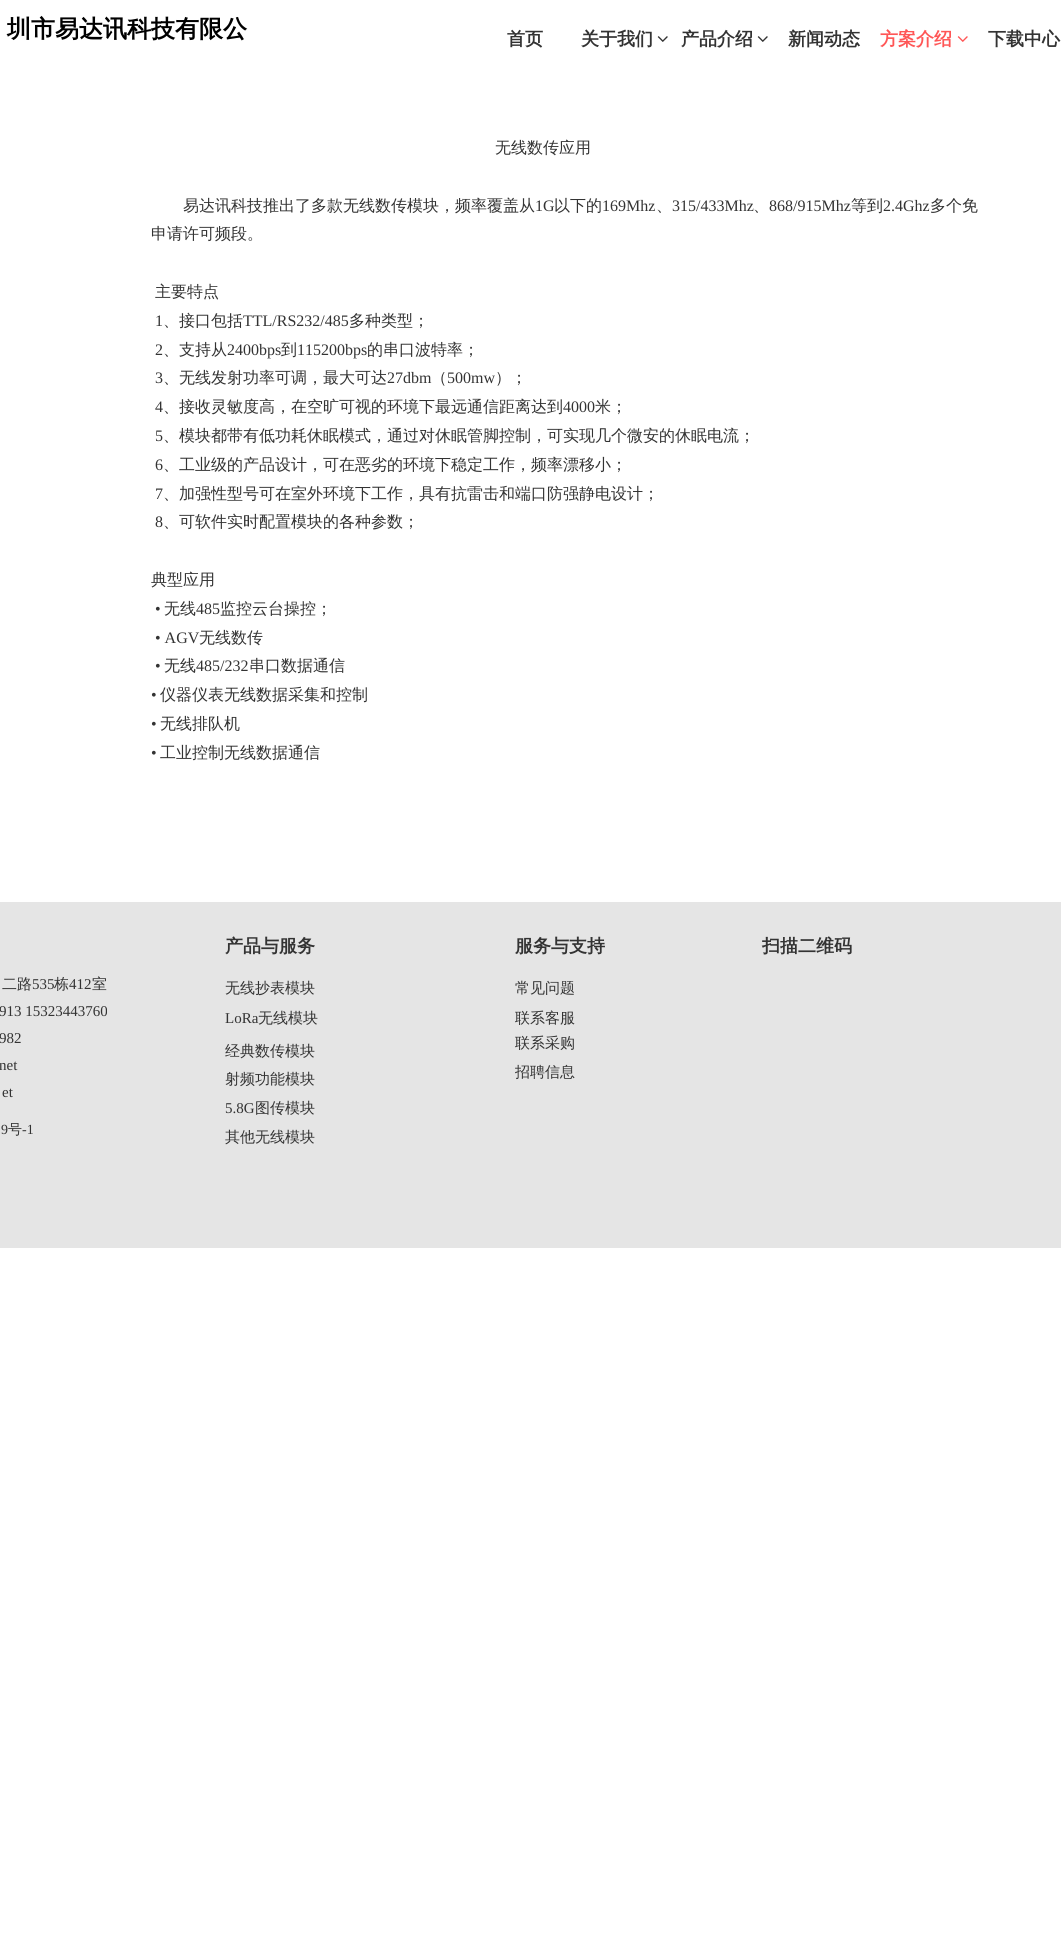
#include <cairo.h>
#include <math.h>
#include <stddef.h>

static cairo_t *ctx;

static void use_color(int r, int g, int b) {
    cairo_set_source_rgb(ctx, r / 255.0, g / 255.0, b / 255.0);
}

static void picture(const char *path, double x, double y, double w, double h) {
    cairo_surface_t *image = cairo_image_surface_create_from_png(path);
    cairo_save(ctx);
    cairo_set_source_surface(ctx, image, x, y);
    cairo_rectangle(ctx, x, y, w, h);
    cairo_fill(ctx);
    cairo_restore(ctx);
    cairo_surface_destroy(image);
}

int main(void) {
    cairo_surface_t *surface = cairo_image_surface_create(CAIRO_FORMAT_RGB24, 1061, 1933);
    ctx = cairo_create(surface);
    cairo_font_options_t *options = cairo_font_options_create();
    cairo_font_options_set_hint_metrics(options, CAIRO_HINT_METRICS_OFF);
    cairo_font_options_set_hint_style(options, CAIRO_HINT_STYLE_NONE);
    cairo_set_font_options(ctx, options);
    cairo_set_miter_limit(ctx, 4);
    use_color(255, 255, 255);
    cairo_paint(ctx);
    cairo_select_font_face(ctx, "WenQuanYi Zen Hei", CAIRO_FONT_SLANT_NORMAL, CAIRO_FONT_WEIGHT_BOLD);
    cairo_set_font_size(ctx, 24);
    use_color(0, 0, 0);
    cairo_move_to(ctx, 7, 37);
    cairo_show_text(ctx, "圳市易达讯科技有限公");
    cairo_set_font_size(ctx, 18);
    use_color(51, 51, 51);
    cairo_move_to(ctx, 507, 45);
    cairo_show_text(ctx, "首页");
    cairo_move_to(ctx, 581, 45);
    cairo_show_text(ctx, "关于我们");
    picture("img1.png", 657, 36, 11, 6);
    cairo_move_to(ctx, 681, 45);
    cairo_show_text(ctx, "产品介绍");
    picture("img1.png", 757, 36, 11, 6);
    cairo_move_to(ctx, 788, 45);
    cairo_show_text(ctx, "新闻动态");
    use_color(255, 86, 86);
    cairo_move_to(ctx, 880, 45);
    cairo_show_text(ctx, "方案介绍");
    picture("img2.png", 957, 36, 11, 6);
    use_color(51, 51, 51);
    cairo_move_to(ctx, 988, 45);
    cairo_show_text(ctx, "下载中心");
    cairo_select_font_face(ctx, "WenQuanYi Zen Hei Medium", CAIRO_FONT_SLANT_NORMAL, CAIRO_FONT_WEIGHT_NORMAL);
    cairo_set_font_size(ctx, 16);
    cairo_move_to(ctx, 495, 153);
    cairo_show_text(ctx, "无线数传应用");
    cairo_move_to(ctx, 183, 211);
    cairo_show_text(ctx, "易达讯科技推出了多款无线数传模块，频率覆盖从");
    cairo_select_font_face(ctx, "Liberation Serif", CAIRO_FONT_SLANT_NORMAL, CAIRO_FONT_WEIGHT_NORMAL);
    cairo_move_to(ctx, 535, 211);
    cairo_show_text(ctx, "1G");
    cairo_select_font_face(ctx, "WenQuanYi Zen Hei Medium", CAIRO_FONT_SLANT_NORMAL, CAIRO_FONT_WEIGHT_NORMAL);
    cairo_move_to(ctx, 554, 211);
    cairo_show_text(ctx, "以下的");
    cairo_select_font_face(ctx, "Liberation Serif", CAIRO_FONT_SLANT_NORMAL, CAIRO_FONT_WEIGHT_NORMAL);
    cairo_move_to(ctx, 602, 211);
    cairo_show_text(ctx, "169Mhz");
    cairo_select_font_face(ctx, "WenQuanYi Zen Hei Medium", CAIRO_FONT_SLANT_NORMAL, CAIRO_FONT_WEIGHT_NORMAL);
    cairo_move_to(ctx, 656, 211);
    cairo_show_text(ctx, "、");
    cairo_select_font_face(ctx, "Liberation Serif", CAIRO_FONT_SLANT_NORMAL, CAIRO_FONT_WEIGHT_NORMAL);
    cairo_move_to(ctx, 672, 211);
    cairo_show_text(ctx, "315/433Mhz");
    cairo_select_font_face(ctx, "WenQuanYi Zen Hei Medium", CAIRO_FONT_SLANT_NORMAL, CAIRO_FONT_WEIGHT_NORMAL);
    cairo_move_to(ctx, 753, 211);
    cairo_show_text(ctx, "、");
    cairo_select_font_face(ctx, "Liberation Serif", CAIRO_FONT_SLANT_NORMAL, CAIRO_FONT_WEIGHT_NORMAL);
    cairo_move_to(ctx, 769, 211);
    cairo_show_text(ctx, "868/915Mhz");
    cairo_select_font_face(ctx, "WenQuanYi Zen Hei Medium", CAIRO_FONT_SLANT_NORMAL, CAIRO_FONT_WEIGHT_NORMAL);
    cairo_move_to(ctx, 851, 211);
    cairo_show_text(ctx, "等到");
    cairo_select_font_face(ctx, "Liberation Serif", CAIRO_FONT_SLANT_NORMAL, CAIRO_FONT_WEIGHT_NORMAL);
    cairo_move_to(ctx, 883, 211);
    cairo_show_text(ctx, "2.4Ghz");
    cairo_select_font_face(ctx, "WenQuanYi Zen Hei Medium", CAIRO_FONT_SLANT_NORMAL, CAIRO_FONT_WEIGHT_NORMAL);
    cairo_move_to(ctx, 930, 211);
    cairo_show_text(ctx, "多个免");
    cairo_move_to(ctx, 151, 239);
    cairo_show_text(ctx, "申请许可频段。");
    cairo_move_to(ctx, 155, 297);
    cairo_show_text(ctx, "主要特点");
    cairo_select_font_face(ctx, "Liberation Serif", CAIRO_FONT_SLANT_NORMAL, CAIRO_FONT_WEIGHT_NORMAL);
    cairo_move_to(ctx, 155, 326);
    cairo_show_text(ctx, "1");
    cairo_select_font_face(ctx, "WenQuanYi Zen Hei Medium", CAIRO_FONT_SLANT_NORMAL, CAIRO_FONT_WEIGHT_NORMAL);
    cairo_move_to(ctx, 163, 326);
    cairo_show_text(ctx, "、接口包括");
    cairo_select_font_face(ctx, "Liberation Serif", CAIRO_FONT_SLANT_NORMAL, CAIRO_FONT_WEIGHT_NORMAL);
    cairo_move_to(ctx, 243, 326);
    cairo_show_text(ctx, "TTL/RS232/485");
    cairo_select_font_face(ctx, "WenQuanYi Zen Hei Medium", CAIRO_FONT_SLANT_NORMAL, CAIRO_FONT_WEIGHT_NORMAL);
    cairo_move_to(ctx, 349, 326);
    cairo_show_text(ctx, "多种类型；");
    cairo_select_font_face(ctx, "Liberation Serif", CAIRO_FONT_SLANT_NORMAL, CAIRO_FONT_WEIGHT_NORMAL);
    cairo_move_to(ctx, 155, 355);
    cairo_show_text(ctx, "2");
    cairo_select_font_face(ctx, "WenQuanYi Zen Hei Medium", CAIRO_FONT_SLANT_NORMAL, CAIRO_FONT_WEIGHT_NORMAL);
    cairo_move_to(ctx, 163, 355);
    cairo_show_text(ctx, "、支持从");
    cairo_select_font_face(ctx, "Liberation Serif", CAIRO_FONT_SLANT_NORMAL, CAIRO_FONT_WEIGHT_NORMAL);
    cairo_move_to(ctx, 227, 355);
    cairo_show_text(ctx, "2400bps");
    cairo_select_font_face(ctx, "WenQuanYi Zen Hei Medium", CAIRO_FONT_SLANT_NORMAL, CAIRO_FONT_WEIGHT_NORMAL);
    cairo_move_to(ctx, 281, 355);
    cairo_show_text(ctx, "到");
    cairo_select_font_face(ctx, "Liberation Serif", CAIRO_FONT_SLANT_NORMAL, CAIRO_FONT_WEIGHT_NORMAL);
    cairo_move_to(ctx, 297, 355);
    cairo_show_text(ctx, "115200bps");
    cairo_select_font_face(ctx, "WenQuanYi Zen Hei Medium", CAIRO_FONT_SLANT_NORMAL, CAIRO_FONT_WEIGHT_NORMAL);
    cairo_move_to(ctx, 367, 355);
    cairo_show_text(ctx, "的串口波特率；");
    cairo_select_font_face(ctx, "Liberation Serif", CAIRO_FONT_SLANT_NORMAL, CAIRO_FONT_WEIGHT_NORMAL);
    cairo_move_to(ctx, 155, 383);
    cairo_show_text(ctx, "3");
    cairo_select_font_face(ctx, "WenQuanYi Zen Hei Medium", CAIRO_FONT_SLANT_NORMAL, CAIRO_FONT_WEIGHT_NORMAL);
    cairo_move_to(ctx, 163, 383);
    cairo_show_text(ctx, "、无线发射功率可调，最大可达");
    cairo_select_font_face(ctx, "Liberation Serif", CAIRO_FONT_SLANT_NORMAL, CAIRO_FONT_WEIGHT_NORMAL);
    cairo_move_to(ctx, 387, 383);
    cairo_show_text(ctx, "27dbm");
    cairo_select_font_face(ctx, "WenQuanYi Zen Hei Medium", CAIRO_FONT_SLANT_NORMAL, CAIRO_FONT_WEIGHT_NORMAL);
    cairo_move_to(ctx, 431, 383);
    cairo_show_text(ctx, "（");
    cairo_select_font_face(ctx, "Liberation Serif", CAIRO_FONT_SLANT_NORMAL, CAIRO_FONT_WEIGHT_NORMAL);
    cairo_move_to(ctx, 447, 383);
    cairo_show_text(ctx, "500mw");
    cairo_select_font_face(ctx, "WenQuanYi Zen Hei Medium", CAIRO_FONT_SLANT_NORMAL, CAIRO_FONT_WEIGHT_NORMAL);
    cairo_move_to(ctx, 495, 383);
    cairo_show_text(ctx, "）；");
    cairo_select_font_face(ctx, "Liberation Serif", CAIRO_FONT_SLANT_NORMAL, CAIRO_FONT_WEIGHT_NORMAL);
    cairo_move_to(ctx, 155, 412);
    cairo_show_text(ctx, "4");
    cairo_select_font_face(ctx, "WenQuanYi Zen Hei Medium", CAIRO_FONT_SLANT_NORMAL, CAIRO_FONT_WEIGHT_NORMAL);
    cairo_move_to(ctx, 163, 412);
    cairo_show_text(ctx, "、接收灵敏度高，在空旷可视的环境下最远通信距离达到");
    cairo_select_font_face(ctx, "Liberation Serif", CAIRO_FONT_SLANT_NORMAL, CAIRO_FONT_WEIGHT_NORMAL);
    cairo_move_to(ctx, 563, 412);
    cairo_show_text(ctx, "4000");
    cairo_select_font_face(ctx, "WenQuanYi Zen Hei Medium", CAIRO_FONT_SLANT_NORMAL, CAIRO_FONT_WEIGHT_NORMAL);
    cairo_move_to(ctx, 595, 412);
    cairo_show_text(ctx, "米；");
    cairo_select_font_face(ctx, "Liberation Serif", CAIRO_FONT_SLANT_NORMAL, CAIRO_FONT_WEIGHT_NORMAL);
    cairo_move_to(ctx, 155, 441);
    cairo_show_text(ctx, "5");
    cairo_select_font_face(ctx, "WenQuanYi Zen Hei Medium", CAIRO_FONT_SLANT_NORMAL, CAIRO_FONT_WEIGHT_NORMAL);
    cairo_move_to(ctx, 163, 441);
    cairo_show_text(ctx, "、模块都带有低功耗休眠模式，通过对休眠管脚控制，可实现几个微安的休眠电流；");
    cairo_select_font_face(ctx, "Liberation Serif", CAIRO_FONT_SLANT_NORMAL, CAIRO_FONT_WEIGHT_NORMAL);
    cairo_move_to(ctx, 155, 470);
    cairo_show_text(ctx, "6");
    cairo_select_font_face(ctx, "WenQuanYi Zen Hei Medium", CAIRO_FONT_SLANT_NORMAL, CAIRO_FONT_WEIGHT_NORMAL);
    cairo_move_to(ctx, 163, 470);
    cairo_show_text(ctx, "、工业级的产品设计，可在恶劣的环境下稳定工作，频率漂移小；");
    cairo_select_font_face(ctx, "Liberation Serif", CAIRO_FONT_SLANT_NORMAL, CAIRO_FONT_WEIGHT_NORMAL);
    cairo_move_to(ctx, 155, 499);
    cairo_show_text(ctx, "7");
    cairo_select_font_face(ctx, "WenQuanYi Zen Hei Medium", CAIRO_FONT_SLANT_NORMAL, CAIRO_FONT_WEIGHT_NORMAL);
    cairo_move_to(ctx, 163, 499);
    cairo_show_text(ctx, "、加强性型号可在室外环境下工作，具有抗雷击和端口防强静电设计；");
    cairo_select_font_face(ctx, "Liberation Serif", CAIRO_FONT_SLANT_NORMAL, CAIRO_FONT_WEIGHT_NORMAL);
    cairo_move_to(ctx, 155, 527);
    cairo_show_text(ctx, "8");
    cairo_select_font_face(ctx, "WenQuanYi Zen Hei Medium", CAIRO_FONT_SLANT_NORMAL, CAIRO_FONT_WEIGHT_NORMAL);
    cairo_move_to(ctx, 163, 527);
    cairo_show_text(ctx, "、可软件实时配置模块的各种参数；");
    cairo_move_to(ctx, 151, 585);
    cairo_show_text(ctx, "典型应用");
    cairo_select_font_face(ctx, "Liberation Serif", CAIRO_FONT_SLANT_NORMAL, CAIRO_FONT_WEIGHT_NORMAL);
    cairo_move_to(ctx, 155, 614);
    cairo_show_text(ctx, "•");
    cairo_select_font_face(ctx, "WenQuanYi Zen Hei Medium", CAIRO_FONT_SLANT_NORMAL, CAIRO_FONT_WEIGHT_NORMAL);
    cairo_move_to(ctx, 164, 614);
    cairo_show_text(ctx, "无线");
    cairo_select_font_face(ctx, "Liberation Serif", CAIRO_FONT_SLANT_NORMAL, CAIRO_FONT_WEIGHT_NORMAL);
    cairo_move_to(ctx, 196, 614);
    cairo_show_text(ctx, "485");
    cairo_select_font_face(ctx, "WenQuanYi Zen Hei Medium", CAIRO_FONT_SLANT_NORMAL, CAIRO_FONT_WEIGHT_NORMAL);
    cairo_move_to(ctx, 220, 614);
    cairo_show_text(ctx, "监控云台操控；");
    cairo_select_font_face(ctx, "Liberation Serif", CAIRO_FONT_SLANT_NORMAL, CAIRO_FONT_WEIGHT_NORMAL);
    cairo_move_to(ctx, 155, 643);
    cairo_show_text(ctx, "• AGV");
    cairo_select_font_face(ctx, "WenQuanYi Zen Hei Medium", CAIRO_FONT_SLANT_NORMAL, CAIRO_FONT_WEIGHT_NORMAL);
    cairo_move_to(ctx, 199, 643);
    cairo_show_text(ctx, "无线数传");
    cairo_select_font_face(ctx, "Liberation Serif", CAIRO_FONT_SLANT_NORMAL, CAIRO_FONT_WEIGHT_NORMAL);
    cairo_move_to(ctx, 155, 671);
    cairo_show_text(ctx, "•");
    cairo_select_font_face(ctx, "WenQuanYi Zen Hei Medium", CAIRO_FONT_SLANT_NORMAL, CAIRO_FONT_WEIGHT_NORMAL);
    cairo_move_to(ctx, 164, 671);
    cairo_show_text(ctx, "无线");
    cairo_select_font_face(ctx, "Liberation Serif", CAIRO_FONT_SLANT_NORMAL, CAIRO_FONT_WEIGHT_NORMAL);
    cairo_move_to(ctx, 196, 671);
    cairo_show_text(ctx, "485/232");
    cairo_select_font_face(ctx, "WenQuanYi Zen Hei Medium", CAIRO_FONT_SLANT_NORMAL, CAIRO_FONT_WEIGHT_NORMAL);
    cairo_move_to(ctx, 249, 671);
    cairo_show_text(ctx, "串口数据通信");
    cairo_select_font_face(ctx, "Liberation Serif", CAIRO_FONT_SLANT_NORMAL, CAIRO_FONT_WEIGHT_NORMAL);
    cairo_move_to(ctx, 151, 700);
    cairo_show_text(ctx, "•");
    cairo_select_font_face(ctx, "WenQuanYi Zen Hei Medium", CAIRO_FONT_SLANT_NORMAL, CAIRO_FONT_WEIGHT_NORMAL);
    cairo_move_to(ctx, 160, 700);
    cairo_show_text(ctx, "仪器仪表无线数据采集和控制");
    cairo_select_font_face(ctx, "Liberation Serif", CAIRO_FONT_SLANT_NORMAL, CAIRO_FONT_WEIGHT_NORMAL);
    cairo_move_to(ctx, 151, 729);
    cairo_show_text(ctx, "•");
    cairo_select_font_face(ctx, "WenQuanYi Zen Hei Medium", CAIRO_FONT_SLANT_NORMAL, CAIRO_FONT_WEIGHT_NORMAL);
    cairo_move_to(ctx, 160, 729);
    cairo_show_text(ctx, "无线排队机");
    cairo_select_font_face(ctx, "Liberation Serif", CAIRO_FONT_SLANT_NORMAL, CAIRO_FONT_WEIGHT_NORMAL);
    cairo_move_to(ctx, 151, 758);
    cairo_show_text(ctx, "•");
    cairo_select_font_face(ctx, "WenQuanYi Zen Hei Medium", CAIRO_FONT_SLANT_NORMAL, CAIRO_FONT_WEIGHT_NORMAL);
    cairo_move_to(ctx, 160, 758);
    cairo_show_text(ctx, "工业控制无线数据通信");
    use_color(229, 229, 229);
    cairo_rectangle(ctx, 0, 902, 1061, 346);
    cairo_fill(ctx);
    cairo_select_font_face(ctx, "WenQuanYi Zen Hei", CAIRO_FONT_SLANT_NORMAL, CAIRO_FONT_WEIGHT_BOLD);
    cairo_set_font_size(ctx, 18);
    use_color(51, 51, 51);
    cairo_move_to(ctx, 225, 952);
    cairo_show_text(ctx, "产品与服务");
    cairo_move_to(ctx, 515, 952);
    cairo_show_text(ctx, "服务与支持");
    cairo_move_to(ctx, 762, 952);
    cairo_show_text(ctx, "扫描二维码");
    cairo_select_font_face(ctx, "WenQuanYi Zen Hei Medium", CAIRO_FONT_SLANT_NORMAL, CAIRO_FONT_WEIGHT_NORMAL);
    cairo_set_font_size(ctx, 15);
    cairo_move_to(ctx, 2, 989);
    cairo_show_text(ctx, "二路");
    cairo_select_font_face(ctx, "Liberation Serif", CAIRO_FONT_SLANT_NORMAL, CAIRO_FONT_WEIGHT_NORMAL);
    cairo_move_to(ctx, 32, 989);
    cairo_show_text(ctx, "535");
    cairo_select_font_face(ctx, "WenQuanYi Zen Hei Medium", CAIRO_FONT_SLANT_NORMAL, CAIRO_FONT_WEIGHT_NORMAL);
    cairo_move_to(ctx, 54, 989);
    cairo_show_text(ctx, "栋");
    cairo_select_font_face(ctx, "Liberation Serif", CAIRO_FONT_SLANT_NORMAL, CAIRO_FONT_WEIGHT_NORMAL);
    cairo_move_to(ctx, 69, 989);
    cairo_show_text(ctx, "412");
    cairo_select_font_face(ctx, "WenQuanYi Zen Hei Medium", CAIRO_FONT_SLANT_NORMAL, CAIRO_FONT_WEIGHT_NORMAL);
    cairo_move_to(ctx, 92, 989);
    cairo_show_text(ctx, "室");
    cairo_select_font_face(ctx, "Liberation Serif", CAIRO_FONT_SLANT_NORMAL, CAIRO_FONT_WEIGHT_NORMAL);
    cairo_move_to(ctx, -1, 1016);
    cairo_show_text(ctx, "913 15323443760");
    cairo_move_to(ctx, -1, 1043);
    cairo_show_text(ctx, "982");
    cairo_move_to(ctx, -1, 1070);
    cairo_show_text(ctx, "net");
    cairo_move_to(ctx, 2, 1097);
    cairo_show_text(ctx, "et");
    cairo_select_font_face(ctx, "WenQuanYi Zen Hei Medium", CAIRO_FONT_SLANT_NORMAL, CAIRO_FONT_WEIGHT_NORMAL);
    cairo_move_to(ctx, 225, 993);
    cairo_show_text(ctx, "无线抄表模块");
    cairo_move_to(ctx, 515, 993);
    cairo_show_text(ctx, "常见问题");
    cairo_select_font_face(ctx, "Liberation Serif", CAIRO_FONT_SLANT_NORMAL, CAIRO_FONT_WEIGHT_NORMAL);
    cairo_move_to(ctx, 225, 1023);
    cairo_show_text(ctx, "LoRa");
    cairo_select_font_face(ctx, "WenQuanYi Zen Hei Medium", CAIRO_FONT_SLANT_NORMAL, CAIRO_FONT_WEIGHT_NORMAL);
    cairo_move_to(ctx, 258, 1023);
    cairo_show_text(ctx, "无线模块");
    cairo_move_to(ctx, 515, 1023);
    cairo_show_text(ctx, "联系客服");
    cairo_move_to(ctx, 225, 1056);
    cairo_show_text(ctx, "经典数传模块");
    cairo_move_to(ctx, 515, 1048);
    cairo_show_text(ctx, "联系采购");
    cairo_move_to(ctx, 225, 1084);
    cairo_show_text(ctx, "射频功能模块");
    cairo_save(ctx);
    cairo_rectangle(ctx, 515, 1062, 68, 20);
    cairo_clip(ctx);
    cairo_move_to(ctx, 515, 1077);
    cairo_show_text(ctx, "招聘信息");
    cairo_restore(ctx);
    cairo_select_font_face(ctx, "Liberation Serif", CAIRO_FONT_SLANT_NORMAL, CAIRO_FONT_WEIGHT_NORMAL);
    cairo_move_to(ctx, 225, 1113);
    cairo_show_text(ctx, "5.8G");
    cairo_select_font_face(ctx, "WenQuanYi Zen Hei Medium", CAIRO_FONT_SLANT_NORMAL, CAIRO_FONT_WEIGHT_NORMAL);
    cairo_move_to(ctx, 255, 1113);
    cairo_show_text(ctx, "图传模块");
    cairo_select_font_face(ctx, "Liberation Serif", CAIRO_FONT_SLANT_NORMAL, CAIRO_FONT_WEIGHT_NORMAL);
    cairo_set_font_size(ctx, 14);
    cairo_move_to(ctx, 1, 1134);
    cairo_show_text(ctx, "9");
    cairo_select_font_face(ctx, "WenQuanYi Zen Hei Medium", CAIRO_FONT_SLANT_NORMAL, CAIRO_FONT_WEIGHT_NORMAL);
    cairo_move_to(ctx, 8, 1134);
    cairo_show_text(ctx, "号");
    cairo_select_font_face(ctx, "Liberation Serif", CAIRO_FONT_SLANT_NORMAL, CAIRO_FONT_WEIGHT_NORMAL);
    cairo_move_to(ctx, 22, 1134);
    cairo_show_text(ctx, "-1");
    cairo_select_font_face(ctx, "WenQuanYi Zen Hei Medium", CAIRO_FONT_SLANT_NORMAL, CAIRO_FONT_WEIGHT_NORMAL);
    cairo_set_font_size(ctx, 15);
    cairo_move_to(ctx, 225, 1142);
    cairo_show_text(ctx, "其他无线模块");
    cairo_surface_write_to_png(surface, "result.png");
    cairo_font_options_destroy(options);
    cairo_destroy(ctx);
    cairo_surface_destroy(surface);
    return 0;
}
